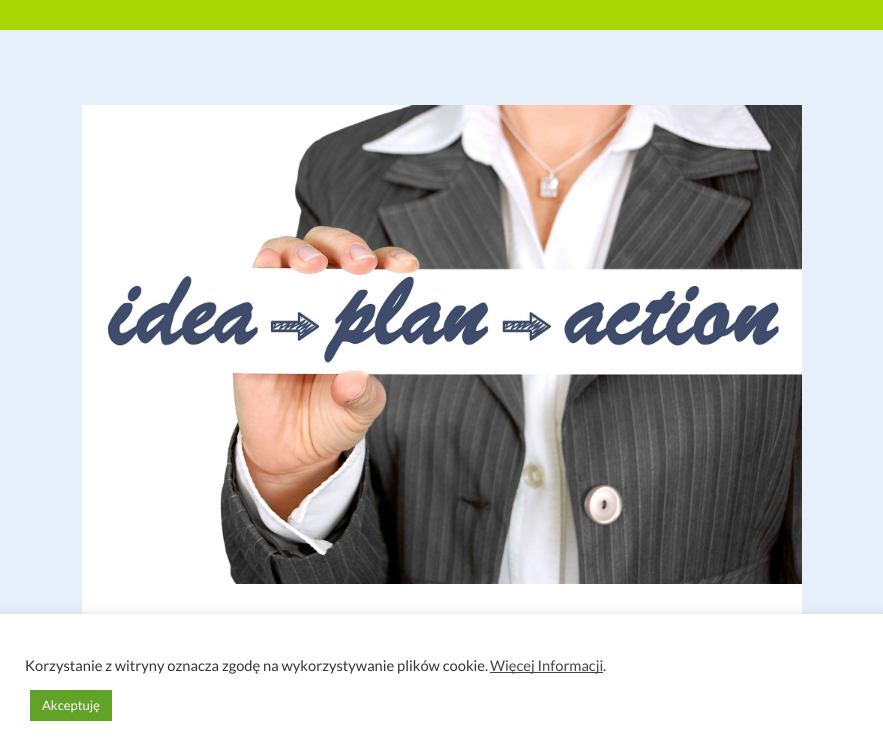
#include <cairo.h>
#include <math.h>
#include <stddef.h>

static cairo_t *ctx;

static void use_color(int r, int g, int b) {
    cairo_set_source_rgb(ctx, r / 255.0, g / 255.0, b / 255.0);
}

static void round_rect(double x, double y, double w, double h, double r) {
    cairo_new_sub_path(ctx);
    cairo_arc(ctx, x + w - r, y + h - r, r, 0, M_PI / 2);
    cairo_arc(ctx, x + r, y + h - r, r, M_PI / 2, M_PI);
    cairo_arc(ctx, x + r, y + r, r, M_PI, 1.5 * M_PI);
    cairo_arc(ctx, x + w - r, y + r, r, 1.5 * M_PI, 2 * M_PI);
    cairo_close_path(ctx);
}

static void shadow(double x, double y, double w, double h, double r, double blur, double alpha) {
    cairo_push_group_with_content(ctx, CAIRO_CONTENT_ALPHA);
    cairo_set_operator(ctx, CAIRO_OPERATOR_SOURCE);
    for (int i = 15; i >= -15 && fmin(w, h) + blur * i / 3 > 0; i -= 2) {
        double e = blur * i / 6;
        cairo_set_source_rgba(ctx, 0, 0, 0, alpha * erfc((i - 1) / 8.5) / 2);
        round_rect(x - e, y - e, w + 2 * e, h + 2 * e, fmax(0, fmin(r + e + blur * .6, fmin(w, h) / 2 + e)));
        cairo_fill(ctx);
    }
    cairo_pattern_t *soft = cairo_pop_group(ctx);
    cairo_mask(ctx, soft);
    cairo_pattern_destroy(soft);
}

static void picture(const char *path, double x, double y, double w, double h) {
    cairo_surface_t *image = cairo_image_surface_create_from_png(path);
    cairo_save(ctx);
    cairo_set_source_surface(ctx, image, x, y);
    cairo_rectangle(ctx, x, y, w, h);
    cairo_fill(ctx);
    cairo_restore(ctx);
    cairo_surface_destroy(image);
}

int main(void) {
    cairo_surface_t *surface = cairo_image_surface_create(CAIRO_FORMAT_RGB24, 883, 751);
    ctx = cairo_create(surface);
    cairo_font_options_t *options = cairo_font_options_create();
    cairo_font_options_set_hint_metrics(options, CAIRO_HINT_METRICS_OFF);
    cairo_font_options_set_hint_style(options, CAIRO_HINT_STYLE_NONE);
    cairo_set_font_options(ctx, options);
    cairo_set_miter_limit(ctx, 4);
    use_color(168, 214, 3);
    cairo_paint(ctx);
    use_color(230, 240, 250);
    cairo_rectangle(ctx, 0, 30, 883, 584);
    cairo_fill(ctx);
    use_color(255, 255, 255);
    cairo_rectangle(ctx, 82, 584, 720, 30);
    cairo_fill(ctx);
    picture("img1.png", 82, 105, 720, 479);
    use_color(172, 171, 171);
    shadow(0, 613, 883, 137, 0, 5, 0.3);
    use_color(255, 255, 255);
    cairo_rectangle(ctx, 0, 614, 883, 137);
    cairo_fill(ctx);
    cairo_select_font_face(ctx, "Lato", CAIRO_FONT_SLANT_NORMAL, CAIRO_FONT_WEIGHT_NORMAL);
    cairo_set_font_size(ctx, 14.7);
    use_color(51, 51, 51);
    cairo_move_to(ctx, 25, 671);
    cairo_show_text(ctx, "Korzystanie z witryny oznacza zgodę na wykorzystywanie plików cookie.");
    use_color(68, 68, 68);
    cairo_rectangle(ctx, 490, 672, 113, 1);
    cairo_fill(ctx);
    cairo_move_to(ctx, 490, 671);
    cairo_show_text(ctx, "Więcej Informacji");
    use_color(51, 51, 51);
    cairo_move_to(ctx, 603, 671);
    cairo_show_text(ctx, ".");
    use_color(97, 162, 41);
    cairo_rectangle(ctx, 30, 690, 82, 31);
    cairo_fill(ctx);
    cairo_set_font_size(ctx, 13);
    use_color(255, 255, 255);
    cairo_move_to(ctx, 42, 710);
    cairo_show_text(ctx, "Akceptuję");
    cairo_surface_write_to_png(surface, "result.png");
    cairo_font_options_destroy(options);
    cairo_destroy(ctx);
    cairo_surface_destroy(surface);
    return 0;
}
